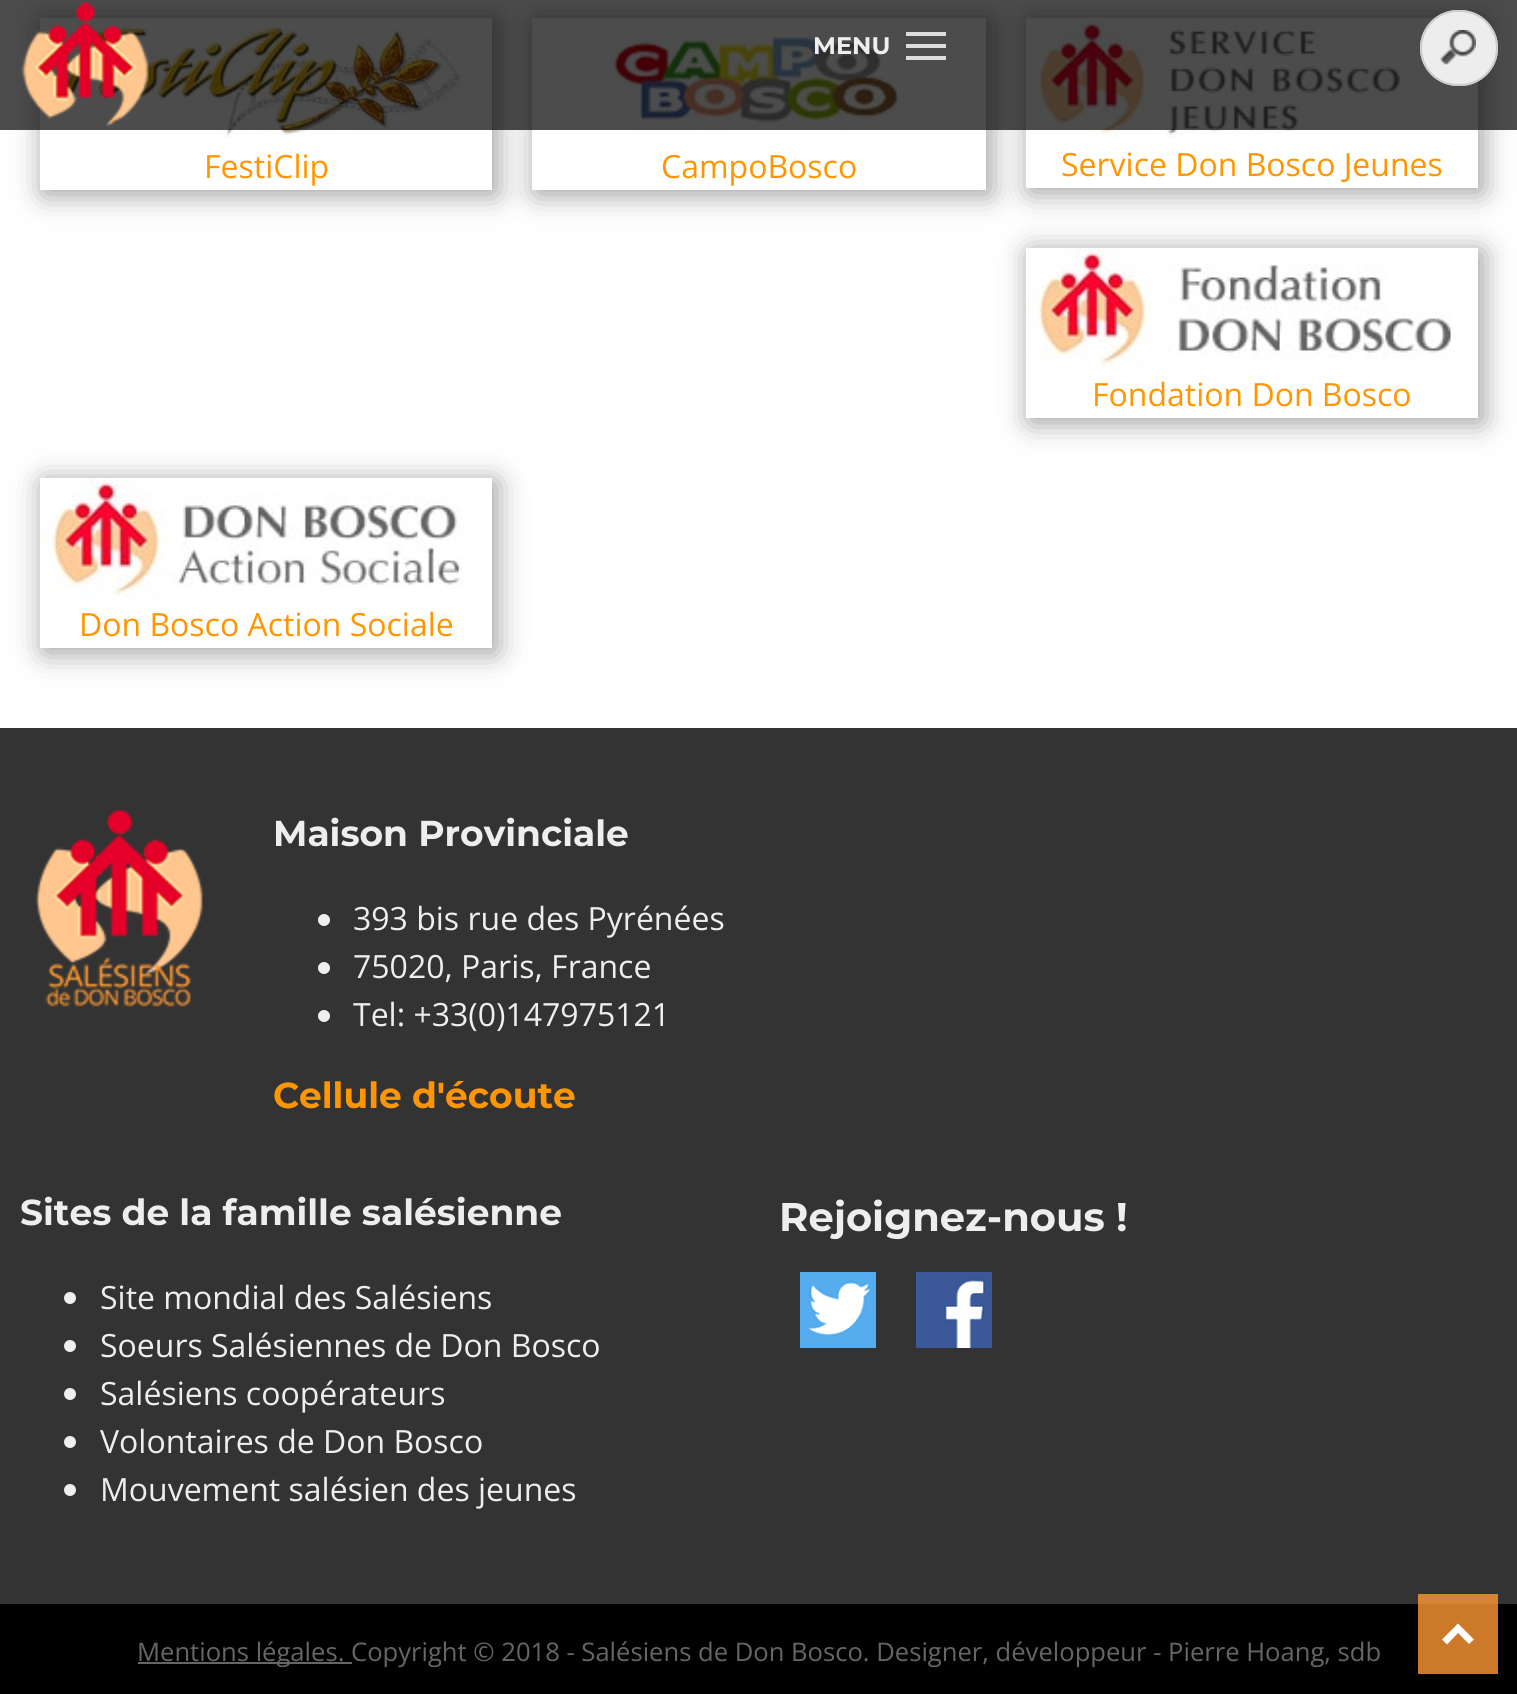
import math
import cairo

surface = cairo.ImageSurface(cairo.FORMAT_RGB24, 1517, 1694)
ctx = cairo.Context(surface)
options = cairo.FontOptions()
options.set_hint_metrics(cairo.HINT_METRICS_OFF)
options.set_hint_style(cairo.HINT_STYLE_NONE)
ctx.set_font_options(options)
ctx.set_miter_limit(4)


def set_color(code):
    ctx.set_source_rgb(*(v / 255 for v in bytes.fromhex(code[-6:])))


def draw_text(x, y, s, family, size, color, bold=False, italic=False):
    ctx.select_font_face(family, cairo.FONT_SLANT_ITALIC if italic else cairo.FONT_SLANT_NORMAL, cairo.FONT_WEIGHT_BOLD if bold else cairo.FONT_WEIGHT_NORMAL)
    ctx.set_font_size(size)
    set_color(color)
    ctx.move_to(x, y)
    ctx.show_text(s)


def fill_rect(x, y, w, h, color):
    set_color(color)
    ctx.rectangle(x, y, w, h)
    ctx.fill()


def rounded_rect(x, y, w, h, r):
    ctx.new_sub_path()
    for i, (u, v) in enumerate([(x + w - r, y + h - r), (x + r, y + h - r), (x + r, y + r), (x + w - r, y + r)]):
        ctx.arc(u, v, r, i * math.pi / 2, (i + 1) * math.pi / 2)
    ctx.close_path()


def draw_shadow(x, y, w, h, r, blur, alpha):
    ctx.push_group_with_content(cairo.CONTENT_ALPHA)
    ctx.set_operator(cairo.OPERATOR_SOURCE)
    for i in range(15, -16, -2):
        e = blur * i / 6
        if min(w, h) + 2 * e > 0:
            ctx.set_source_rgba(0, 0, 0, alpha * math.erfc((i - 1) / 8.5) / 2)
            rounded_rect(x - e, y - e, w + 2 * e, h + 2 * e, max(0, min(r + e + blur * .6, min(w, h) / 2 + e)))
            ctx.fill()
    ctx.mask(ctx.pop_group())


def draw_image(path, x, y, w, h):
    ctx.save()
    ctx.set_source_surface(cairo.ImageSurface.create_from_png(path), x, y)
    ctx.rectangle(x, y, w, h)
    ctx.fill()
    ctx.restore()


set_color("#ffffff")
ctx.paint()
ctx.save()
ctx.set_fill_rule(cairo.FILL_RULE_EVEN_ODD)
ctx.new_path()
ctx.move_to(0, 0)
ctx.line_to(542, 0)
ctx.line_to(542, 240)
ctx.line_to(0, 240)
ctx.close_path()
ctx.move_to(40, 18)
ctx.line_to(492, 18)
ctx.line_to(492, 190)
ctx.line_to(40, 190)
ctx.close_path()
ctx.clip()
set_color("#999999")
draw_shadow(44, 22, 452, 172, 0, 15, 1)
ctx.restore()
draw_image("assets/img3.png", 40, 18, 422, 121)
ctx.save()
ctx.set_fill_rule(cairo.FILL_RULE_EVEN_ODD)
ctx.new_path()
ctx.move_to(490, 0)
ctx.line_to(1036, 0)
ctx.line_to(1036, 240)
ctx.line_to(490, 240)
ctx.close_path()
ctx.move_to(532, 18)
ctx.line_to(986, 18)
ctx.line_to(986, 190)
ctx.line_to(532, 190)
ctx.close_path()
ctx.clip()
set_color("#999999")
draw_shadow(536, 22, 454, 172, 0, 15, 1)
ctx.restore()
draw_image("assets/img4.png", 605, 36, 295, 99)
ctx.save()
ctx.set_fill_rule(cairo.FILL_RULE_EVEN_ODD)
ctx.new_path()
ctx.move_to(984, 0)
ctx.line_to(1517, 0)
ctx.line_to(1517, 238)
ctx.line_to(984, 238)
ctx.close_path()
ctx.move_to(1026, 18)
ctx.line_to(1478, 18)
ctx.line_to(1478, 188)
ctx.line_to(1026, 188)
ctx.close_path()
ctx.clip()
set_color("#999999")
draw_shadow(1030, 22, 452, 170, 0, 15, 1)
ctx.restore()
draw_image("assets/img5.png", 1026, 18, 377, 122)
ctx.set_source_rgba(0, 0, 0, 0.7)
ctx.rectangle(0, 0, 1517, 130)
ctx.fill()
draw_image("assets/img1.png", 21, 1, 128, 126)
fill_rect(906, 32, 40, 4, "#dddddd")
draw_text(813, 54, "MENU", "Montserrat", 24, "#eeeeee", bold=True)
fill_rect(906, 44, 40, 4, "#dddddd")
fill_rect(906, 56, 40, 4, "#dddddd")
set_color("#ededed")
rounded_rect(1420, 10, 78, 76, 38)
ctx.fill()
draw_image("assets/img2.png", 1440, 30, 36, 36)
rounded_rect(1421, 11, 76, 74, 37)
set_color("#cccccc")
ctx.stroke()
draw_text(204, 178, "FestiClip", "Open Sans", 32, "#ff9601")
draw_text(661, 178, "CampoBosco", "Open Sans", 32, "#ff9601")
draw_text(1061, 176, "Service Don Bosco Jeunes", "Open Sans", 32, "#ff9601")
ctx.save()
ctx.set_fill_rule(cairo.FILL_RULE_EVEN_ODD)
ctx.new_path()
ctx.move_to(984, 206)
ctx.line_to(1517, 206)
ctx.line_to(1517, 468)
ctx.line_to(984, 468)
ctx.close_path()
ctx.move_to(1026, 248)
ctx.line_to(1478, 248)
ctx.line_to(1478, 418)
ctx.line_to(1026, 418)
ctx.close_path()
ctx.clip()
set_color("#999999")
draw_shadow(1030, 252, 452, 170, 0, 15, 1)
ctx.restore()
draw_image("assets/img6.png", 1026, 248, 425, 122)
draw_text(1092, 406, "Fondation Don Bosco", "Open Sans", 32, "#ff9601")
ctx.save()
ctx.set_fill_rule(cairo.FILL_RULE_EVEN_ODD)
ctx.new_path()
ctx.move_to(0, 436)
ctx.line_to(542, 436)
ctx.line_to(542, 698)
ctx.line_to(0, 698)
ctx.close_path()
ctx.move_to(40, 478)
ctx.line_to(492, 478)
ctx.line_to(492, 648)
ctx.line_to(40, 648)
ctx.close_path()
ctx.clip()
set_color("#999999")
draw_shadow(44, 482, 452, 170, 0, 15, 1)
ctx.restore()
draw_image("assets/img7.png", 40, 478, 424, 122)
draw_text(79, 636, "Don Bosco Action Sociale", "Open Sans", 32, "#ff9601")
fill_rect(0, 728, 1517, 876, "#333333")
fill_rect(1418, 1594, 80, 10, "#d68533")
draw_image("assets/img8.png", 35, 809, 168, 198)
draw_text(273, 846, "Maison Provinciale", "Montserrat", 36, "#eeeeee", bold=True)
ctx.new_path()
ctx.arc(324, 920, 6, 0, 2 * math.pi)
ctx.fill()
draw_text(353, 930, "393 bis rue des Pyrénées", "Open Sans", 32, "#eeeeee")
ctx.new_path()
ctx.arc(324, 968, 6, 0, 2 * math.pi)
ctx.fill()
draw_text(353, 978, "75020, Paris, France", "Open Sans", 32, "#eeeeee")
ctx.new_path()
ctx.arc(324, 1016, 6, 0, 2 * math.pi)
ctx.fill()
draw_text(353, 1026, "Tel: +33(0)147975121", "Open Sans", 32, "#eeeeee")
draw_text(273, 1108, "Cellule d'écoute", "Montserrat", 36, "#ff9601", bold=True)
draw_text(20, 1225, "Sites de la famille salésienne", "Montserrat", 36, "#eeeeee", bold=True)
ctx.new_path()
ctx.arc(70, 1298, 6, 0, 2 * math.pi)
ctx.fill()
draw_text(100, 1309, "Site mondial des Salésiens", "Open Sans", 32, "#eeeeee")
ctx.new_path()
ctx.arc(70, 1346, 6, 0, 2 * math.pi)
ctx.fill()
draw_text(100, 1357, "Soeurs Salésiennes de Don Bosco", "Open Sans", 32, "#eeeeee")
ctx.new_path()
ctx.arc(70, 1394, 6, 0, 2 * math.pi)
ctx.fill()
draw_text(100, 1405, "Salésiens coopérateurs", "Open Sans", 32, "#eeeeee")
ctx.new_path()
ctx.arc(70, 1442, 6, 0, 2 * math.pi)
ctx.fill()
draw_text(100, 1453, "Volontaires de Don Bosco", "Open Sans", 32, "#eeeeee")
ctx.new_path()
ctx.arc(70, 1490, 6, 0, 2 * math.pi)
ctx.fill()
draw_text(100, 1501, "Mouvement salésien des jeunes", "Open Sans", 32, "#eeeeee")
draw_text(779, 1231, "Rejoignez-nous !", "Montserrat", 40, "#eeeeee", bold=True)
fill_rect(810, 1284, 59, 51, "#ffffff")
draw_image("assets/img9.png", 800, 1272, 76, 76)
fill_rect(946, 1281, 37, 67, "#ffffff")
draw_image("assets/img10.png", 916, 1272, 76, 76)
fill_rect(0, 1604, 1517, 90, "#000000")
fill_rect(1418, 1604, 80, 70, "#cc7a29")
set_color("#ffffff")
ctx.new_path()
ctx.move_to(1458, 1623.5)
ctx.line_to(1474, 1639.5)
ctx.line_to(1469, 1644)
ctx.line_to(1458, 1633)
ctx.line_to(1447, 1644.5)
ctx.line_to(1442, 1639.5)
ctx.close_path()
ctx.fill()
fill_rect(138, 1662, 214, 2, "#666666")
draw_text(137, 1661, "Mentions légales. Copyright © 2018 - Salésiens de Don Bosco. Designer, développeur - Pierre Hoang, sdb", "Open Sans", 25.6, "#666666")
surface.write_to_png("output.png")
